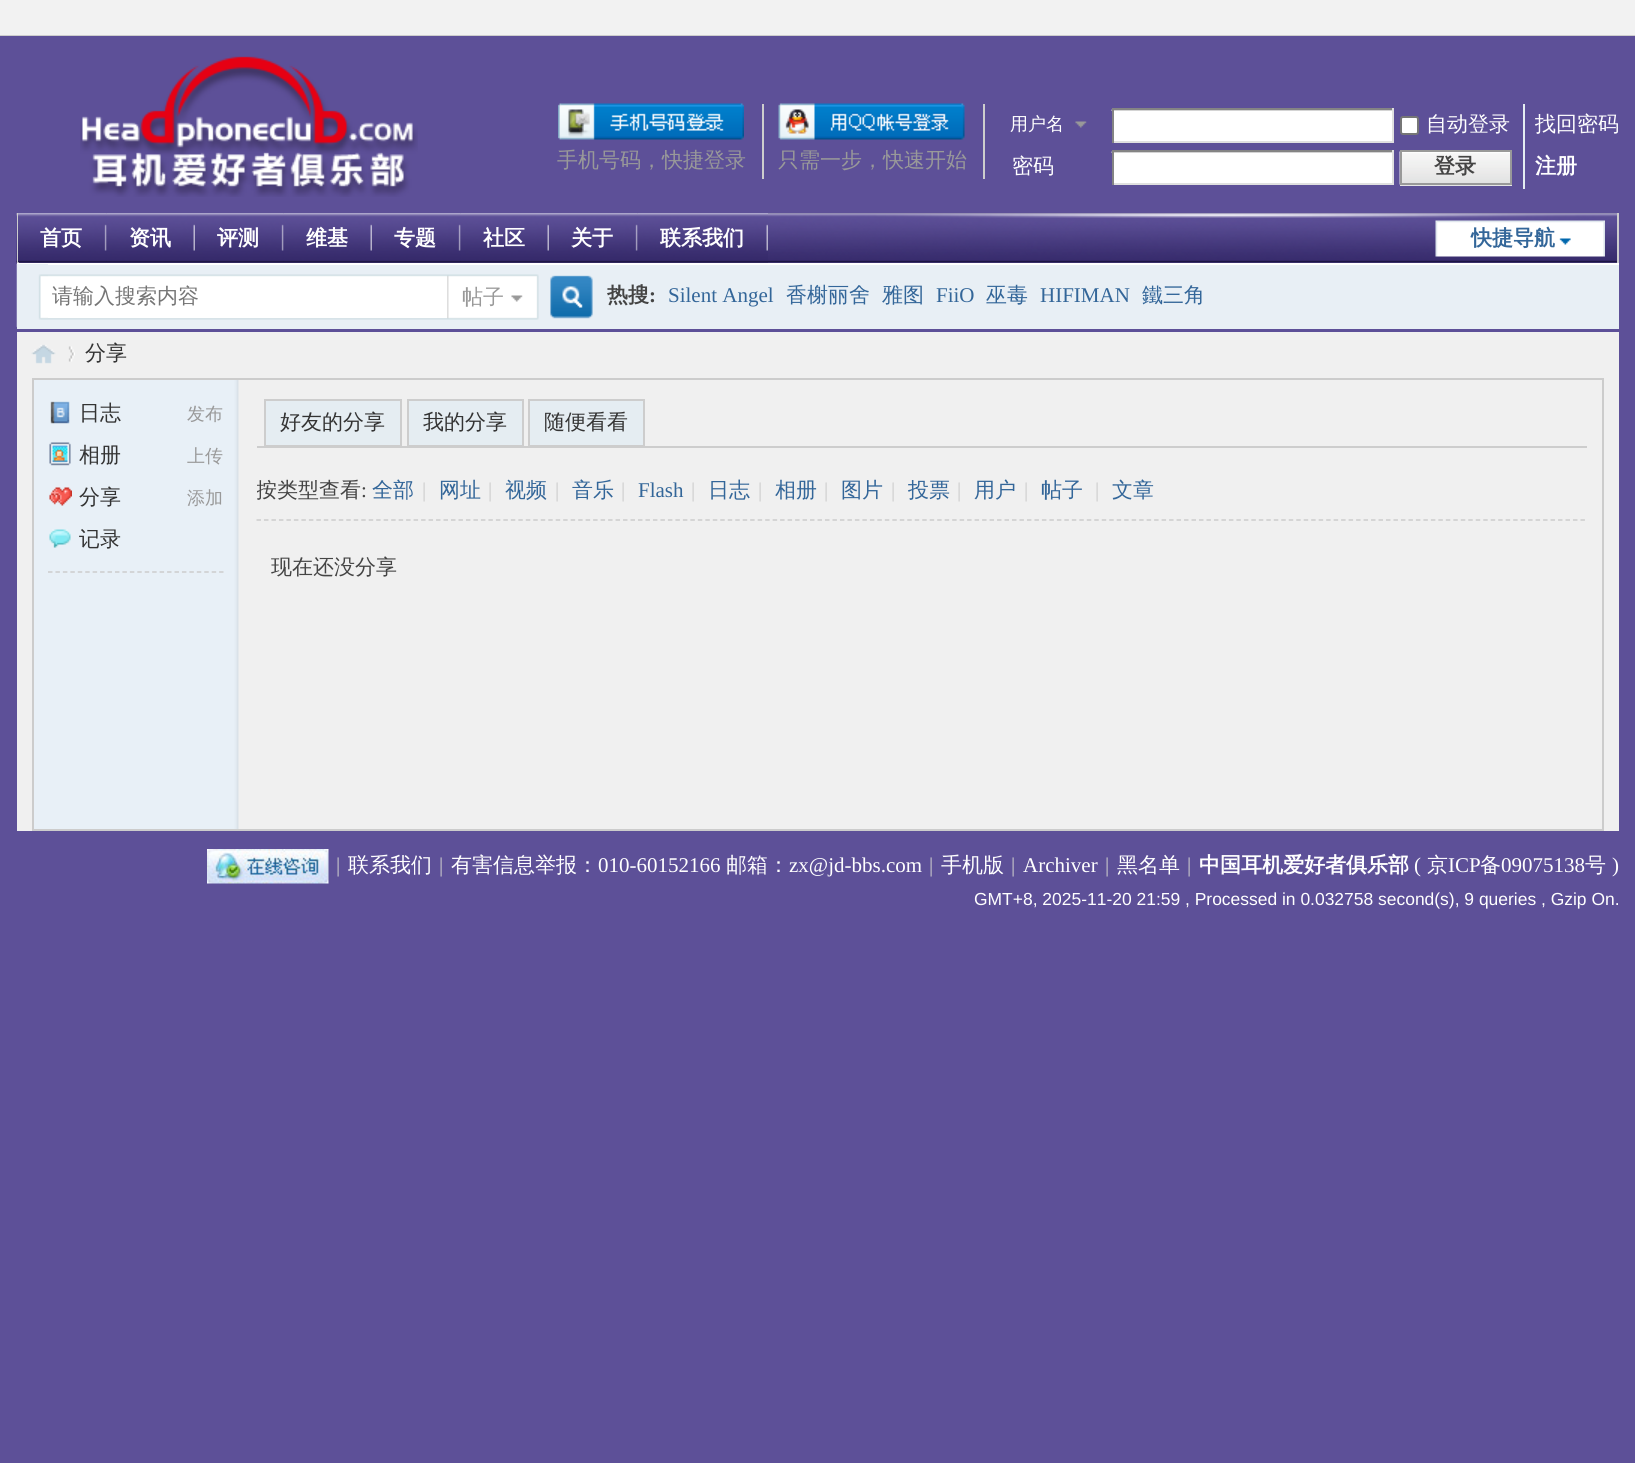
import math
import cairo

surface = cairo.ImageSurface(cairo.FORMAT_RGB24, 1635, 1463)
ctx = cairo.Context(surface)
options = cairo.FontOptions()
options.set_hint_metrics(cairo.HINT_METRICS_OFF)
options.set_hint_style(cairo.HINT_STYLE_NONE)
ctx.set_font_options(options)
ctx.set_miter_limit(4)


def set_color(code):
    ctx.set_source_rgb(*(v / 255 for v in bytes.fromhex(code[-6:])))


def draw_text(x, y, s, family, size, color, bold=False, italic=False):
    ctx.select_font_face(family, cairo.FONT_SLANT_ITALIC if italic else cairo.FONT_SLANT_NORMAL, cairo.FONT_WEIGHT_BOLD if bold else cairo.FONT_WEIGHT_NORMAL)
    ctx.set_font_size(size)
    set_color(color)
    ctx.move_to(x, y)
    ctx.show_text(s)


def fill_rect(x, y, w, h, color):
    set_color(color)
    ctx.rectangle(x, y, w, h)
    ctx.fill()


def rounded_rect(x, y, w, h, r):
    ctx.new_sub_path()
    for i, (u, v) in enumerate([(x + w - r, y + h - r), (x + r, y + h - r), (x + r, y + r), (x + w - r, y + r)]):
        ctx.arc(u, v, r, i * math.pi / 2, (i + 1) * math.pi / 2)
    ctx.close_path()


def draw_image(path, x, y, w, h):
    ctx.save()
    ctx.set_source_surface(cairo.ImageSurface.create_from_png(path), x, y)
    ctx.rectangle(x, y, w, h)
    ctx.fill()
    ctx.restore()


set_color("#5d5098")
ctx.paint()
fill_rect(0, 0, 1635, 35, "#f2f2f2")
fill_rect(0, 35, 1635, 1, "#cdcdcd")
draw_image("assets/img1.png", 80, 56, 338, 141)
fill_rect(762, 104, 2, 75, "#cdcdcd")
draw_image("assets/img2.png", 558, 103, 186, 37)
draw_text(557, 167, "手机号码，快捷登录", "WenQuanYi Zen Hei Medium", 21, "#999999")
fill_rect(983, 104, 2, 75, "#cdcdcd")
draw_image("assets/img3.png", 778, 103, 187, 37)
draw_text(778, 167, "只需一步，快速开始", "WenQuanYi Zen Hei Medium", 21, "#999999")
draw_image("assets/img4.png", 1075, 121, 12, 7)
draw_text(1010, 130, "用户名", "WenQuanYi Zen Hei Medium", 18, "#ffffff")
fill_rect(1114, 111, 278, 30, "#ffffff")
draw_image("assets/img5.png", 1111, 109, 281, 2)
fill_rect(1112, 108, 282, 2, "#848484")
fill_rect(1392, 108, 2, 35, "#e0e0e0")
fill_rect(1112, 141, 282, 2, "#e0e0e0")
fill_rect(1112, 108, 2, 35, "#848484")
set_color("#ffffff")
rounded_rect(1401, 117, 17, 17, 2)
ctx.fill_preserve()
set_color("#767676")
ctx.stroke()
draw_text(1426, 131, "自动登录", "WenQuanYi Zen Hei Medium", 21, "#ffffff")
draw_text(1535, 131, "找回密码", "WenQuanYi Zen Hei Medium", 21, "#ffffff")
draw_text(1012, 173, "密码", "WenQuanYi Zen Hei Medium", 21, "#ffffff")
fill_rect(1114, 153, 278, 30, "#ffffff")
draw_image("assets/img5.png", 1111, 151, 281, 2)
fill_rect(1112, 150, 282, 2, "#848484")
fill_rect(1392, 150, 2, 35, "#e0e0e0")
fill_rect(1112, 183, 282, 2, "#e0e0e0")
fill_rect(1112, 150, 2, 35, "#848484")
fill_rect(1523, 104, 2, 85, "#e5edf2")
fill_rect(1400, 185, 112, 1, "#e5e5e5")
draw_image("assets/img6.png", 1399, 151, 111, 34)
ctx.rectangle(1401, 151, 110, 33)
set_color("#999999")
ctx.stroke()
draw_text(1434, 173, "登录", "WenQuanYi Zen Hei", 21, "#444444", bold=True)
draw_text(1535, 173, "注册", "WenQuanYi Zen Hei", 21, "#ffffff", bold=True)
draw_image("assets/img7.png", 16, 213, 1601, 50)
fill_rect(1617, 213, 2, 50, "#cdcdcd")
fill_rect(17, 213, 2, 50, "#cdcdcd")
draw_image("assets/img8.png", 18, 213, 89, 50)
draw_text(40, 245, "首页", "WenQuanYi Zen Hei", 21, "#ffffff", bold=True)
draw_image("assets/img9.png", 106, 213, 89, 50)
draw_text(129, 245, "资讯", "WenQuanYi Zen Hei", 21, "#ffffff", bold=True)
draw_image("assets/img10.png", 195, 213, 89, 50)
draw_text(217, 245, "评测", "WenQuanYi Zen Hei", 21, "#ffffff", bold=True)
draw_image("assets/img11.png", 283, 213, 89, 50)
draw_text(306, 245, "维基", "WenQuanYi Zen Hei", 21, "#ffffff", bold=True)
draw_image("assets/img12.png", 372, 213, 89, 50)
draw_text(394, 245, "专题", "WenQuanYi Zen Hei", 21, "#ffffff", bold=True)
draw_image("assets/img13.png", 460, 213, 89, 50)
draw_text(483, 245, "社区", "WenQuanYi Zen Hei", 21, "#ffffff", bold=True)
draw_image("assets/img14.png", 549, 213, 89, 50)
draw_text(571, 245, "关于", "WenQuanYi Zen Hei", 21, "#ffffff", bold=True)
draw_image("assets/img15.png", 637, 213, 131, 50)
draw_text(660, 245, "联系我们", "WenQuanYi Zen Hei", 21, "#ffffff", bold=True)
draw_image("assets/img16.png", 1435, 220, 170, 37)
draw_text(1471, 245, "快捷导航", "WenQuanYi Zen Hei", 21, "#336699", bold=True)
fill_rect(17, 265, 1602, 64, "#e8eff5")
fill_rect(17, 263, 1602, 2, "#ffffff")
draw_image("assets/img17.png", 16, 264, 32, 63)
draw_image("assets/img18.png", 48, 274, 399, 46)
fill_rect(48, 317, 399, 1, "#ffffff")
draw_text(52, 303, "请输入搜索内容", "WenQuanYi Zen Hei Medium", 21, "#757575")
draw_image("assets/img19.png", 447, 274, 92, 46)
draw_text(462, 304, "帖子", "WenQuanYi Zen Hei Medium", 21, "#999999")
draw_image("assets/img20.png", 550, 275, 43, 44)
draw_text(607, 302, "热搜", "WenQuanYi Zen Hei", 21, "#444444", bold=True)
draw_text(649, 302, ":", "Liberation Serif", 21, "#444444", bold=True)
draw_text(668, 302, "Silent Angel", "Liberation Serif", 21, "#336699")
draw_text(786, 302, "香榭丽舍", "WenQuanYi Zen Hei Medium", 21, "#336699")
draw_text(882, 302, "雅图", "WenQuanYi Zen Hei Medium", 21, "#336699")
draw_text(936, 302, "FiiO", "Liberation Serif", 21, "#336699")
draw_text(986, 302, "巫毒", "WenQuanYi Zen Hei Medium", 21, "#336699")
draw_text(1040, 302, "HIFIMAN", "Liberation Serif", 21, "#336699")
draw_text(1142, 302, "鐵三角", "WenQuanYi Zen Hei Medium", 21, "#336699")
fill_rect(17, 332, 1602, 499, "#f0f0f0")
draw_image("assets/img21.png", 31, 344, 25, 20)
draw_image("assets/img22.png", 68, 346, 7, 16)
draw_text(85, 360, "分享", "WenQuanYi Zen Hei Medium", 21, "#333333")
draw_image("assets/img23.png", 34, 380, 205, 449)
ctx.rectangle(33, 379, 1570, 451)
set_color("#cccccc")
ctx.stroke()
draw_image("assets/img24.png", 50, 401, 20, 23)
draw_text(79, 420, "日志", "WenQuanYi Zen Hei Medium", 21, "#333333")
draw_text(187, 420, "发布", "WenQuanYi Zen Hei Medium", 18, "#999999")
draw_image("assets/img25.png", 49, 442, 22, 24)
draw_text(79, 462, "相册", "WenQuanYi Zen Hei Medium", 21, "#333333")
draw_text(187, 462, "上传", "WenQuanYi Zen Hei Medium", 18, "#999999")
draw_image("assets/img26.png", 49, 487, 23, 19)
draw_text(79, 504, "分享", "WenQuanYi Zen Hei Medium", 21, "#333333")
draw_text(187, 504, "添加", "WenQuanYi Zen Hei Medium", 18, "#999999")
draw_image("assets/img27.png", 49, 529, 22, 19)
draw_text(79, 546, "记录", "WenQuanYi Zen Hei Medium", 21, "#333333")
ctx.new_path()
ctx.move_to(48, 572)
ctx.line_to(223.5, 572)
set_color("#cdcdcd")
ctx.set_line_width(1.5)
ctx.set_dash([4.5, 2.94])
ctx.stroke()
fill_rect(257, 446, 1330, 2, "#cdcdcd")
set_color("#e5edf2")
ctx.rectangle(265, 400, 136, 46)
ctx.fill_preserve()
set_color("#cdcdcd")
ctx.set_line_width(2)
ctx.set_dash([])
ctx.stroke()
draw_text(280, 429, "好友的分享", "WenQuanYi Zen Hei Medium", 21, "#333333")
set_color("#e5edf2")
ctx.rectangle(408, 400, 115, 46)
ctx.fill_preserve()
set_color("#cdcdcd")
ctx.stroke()
draw_text(423, 429, "我的分享", "WenQuanYi Zen Hei Medium", 21, "#333333")
set_color("#e5edf2")
ctx.rectangle(529, 400, 115, 46)
ctx.fill_preserve()
set_color("#cdcdcd")
ctx.stroke()
draw_text(544, 429, "随便看看", "WenQuanYi Zen Hei Medium", 21, "#333333")
ctx.new_path()
ctx.move_to(256.5, 520)
ctx.line_to(1587, 520)
set_color("#cdcdcd")
ctx.set_line_width(1.5)
ctx.set_dash([4.5, 2.98])
ctx.stroke()
ctx.save()
ctx.rectangle(257, 380, 1330, 250)
ctx.clip()
draw_text(256, 497, "按类型查看", "WenQuanYi Zen Hei Medium", 21, "#444444")
ctx.restore()
draw_text(361, 497, ":", "Liberation Serif", 21, "#444444")
draw_text(372, 497, "全部", "WenQuanYi Zen Hei Medium", 21, "#336699")
draw_text(422, 497, "|", "Liberation Serif", 21, "#cccccc")
draw_text(439, 497, "网址", "WenQuanYi Zen Hei Medium", 21, "#336699")
draw_text(488, 497, "|", "Liberation Serif", 21, "#cccccc")
draw_text(505, 497, "视频", "WenQuanYi Zen Hei Medium", 21, "#336699")
draw_text(555, 497, "|", "Liberation Serif", 21, "#cccccc")
draw_text(572, 497, "音乐", "WenQuanYi Zen Hei Medium", 21, "#336699")
draw_text(621, 497, "|", "Liberation Serif", 21, "#cccccc")
draw_text(638, 497, "Flash", "Liberation Serif", 21, "#336699")
draw_text(691, 497, "|", "Liberation Serif", 21, "#cccccc")
draw_text(708, 497, "日志", "WenQuanYi Zen Hei Medium", 21, "#336699")
draw_text(758, 497, "|", "Liberation Serif", 21, "#cccccc")
draw_text(775, 497, "相册", "WenQuanYi Zen Hei Medium", 21, "#336699")
draw_text(824, 497, "|", "Liberation Serif", 21, "#cccccc")
draw_text(841, 497, "图片", "WenQuanYi Zen Hei Medium", 21, "#336699")
draw_text(891, 497, "|", "Liberation Serif", 21, "#cccccc")
draw_text(908, 497, "投票", "WenQuanYi Zen Hei Medium", 21, "#336699")
draw_text(957, 497, "|", "Liberation Serif", 21, "#cccccc")
draw_text(974, 497, "用户", "WenQuanYi Zen Hei Medium", 21, "#336699")
draw_text(1024, 497, "|", "Liberation Serif", 21, "#cccccc")
draw_text(1041, 497, "帖子", "WenQuanYi Zen Hei Medium", 21, "#336699")
draw_text(1095, 497, "|", "Liberation Serif", 21, "#cccccc")
draw_text(1112, 497, "文章", "WenQuanYi Zen Hei Medium", 21, "#336699")
draw_text(271, 574, "现在还没分享", "WenQuanYi Zen Hei Medium", 21, "#444444")
draw_image("assets/img28.png", 207, 849, 122, 35)
draw_text(336, 872, "|", "Liberation Serif", 21, "#cccccc")
draw_text(348, 872, "联系我们", "WenQuanYi Zen Hei Medium", 21, "#ffffff")
draw_text(439, 872, "|", "Liberation Serif", 21, "#cccccc")
draw_text(451, 872, "有害信息举报：", "WenQuanYi Zen Hei Medium", 21, "#ffffff")
draw_text(598, 872, "010-60152166", "Liberation Serif", 21, "#ffffff")
draw_text(726, 872, "邮箱：", "WenQuanYi Zen Hei Medium", 21, "#ffffff")
draw_text(789, 872, "zx@jd-bbs.com", "Liberation Serif", 21, "#ffffff")
draw_text(929, 872, "|", "Liberation Serif", 21, "#cccccc")
draw_text(941, 872, "手机版", "WenQuanYi Zen Hei Medium", 21, "#ffffff")
draw_text(1011, 872, "|", "Liberation Serif", 21, "#cccccc")
draw_text(1023, 872, "Archiver", "Liberation Serif", 21, "#ffffff")
draw_text(1105, 872, "|", "Liberation Serif", 21, "#cccccc")
draw_text(1117, 872, "黑名单", "WenQuanYi Zen Hei Medium", 21, "#ffffff")
draw_text(1187, 872, "|", "Liberation Serif", 21, "#cccccc")
draw_text(1199, 872, "中国耳机爱好者俱乐部", "WenQuanYi Zen Hei", 21, "#ffffff", bold=True)
draw_text(1414, 872, "(", "Liberation Serif", 21, "#ffffff")
draw_text(1427, 872, "京", "WenQuanYi Zen Hei Medium", 21, "#ffffff")
draw_text(1448, 872, "ICP", "Liberation Serif", 21, "#ffffff")
draw_text(1480, 872, "备", "WenQuanYi Zen Hei Medium", 21, "#ffffff")
draw_text(1501, 872, "09075138", "Liberation Serif", 21, "#ffffff")
draw_text(1585, 872, "号", "WenQuanYi Zen Hei Medium", 21, "#ffffff")
draw_text(1612, 872, ")", "Liberation Serif", 21, "#ffffff")
draw_text(974, 905, "GMT+8, 2025-11-20 21:59 , Processed in 0.032758 second(s), 9 queries , Gzip On.", "Liberation Sans", 17.45, "#ffffff")
surface.write_to_png("output.png")
